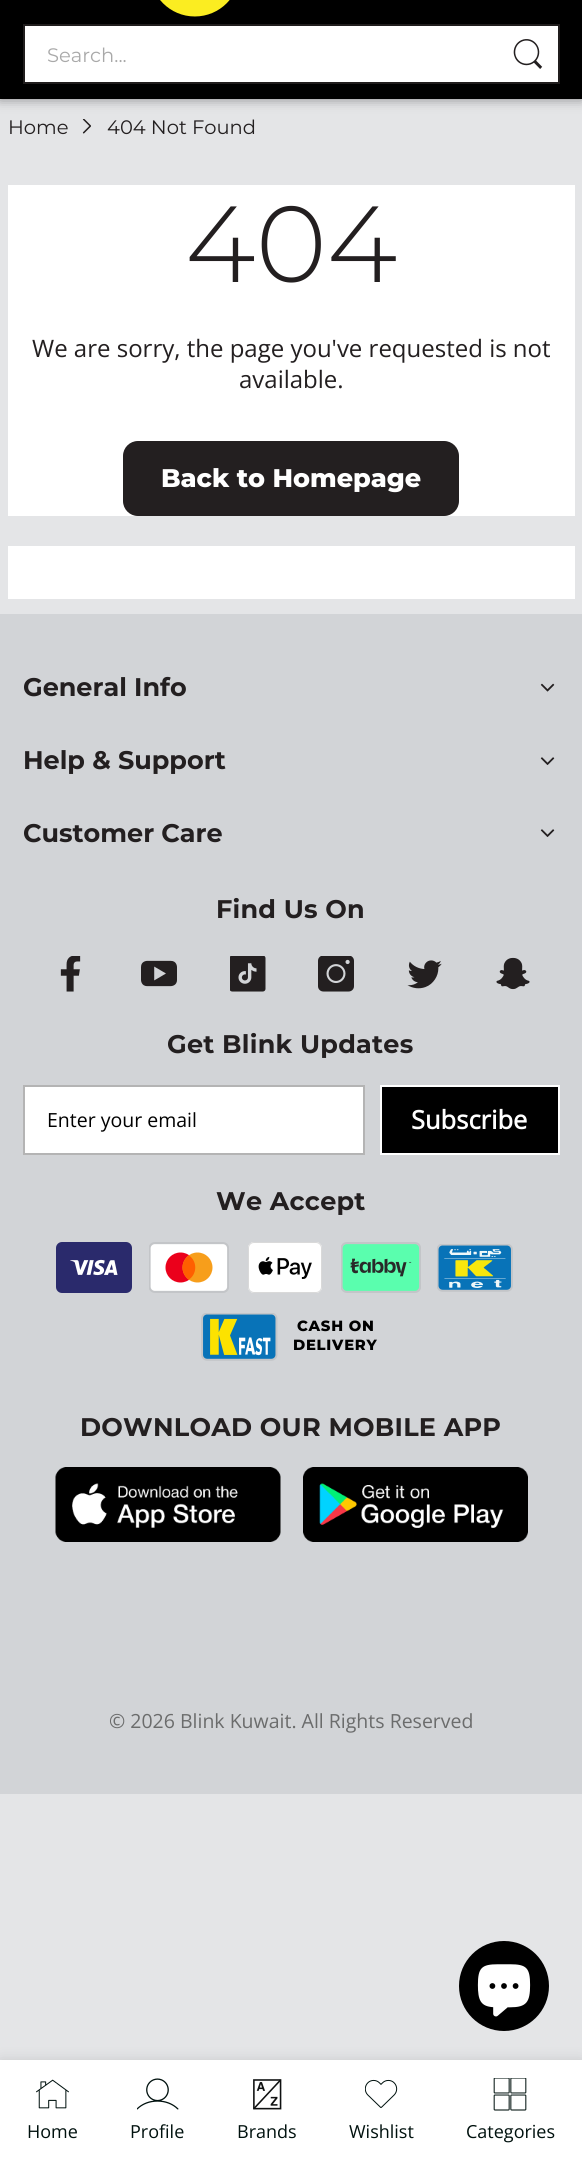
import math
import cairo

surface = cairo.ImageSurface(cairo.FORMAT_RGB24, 582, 2158)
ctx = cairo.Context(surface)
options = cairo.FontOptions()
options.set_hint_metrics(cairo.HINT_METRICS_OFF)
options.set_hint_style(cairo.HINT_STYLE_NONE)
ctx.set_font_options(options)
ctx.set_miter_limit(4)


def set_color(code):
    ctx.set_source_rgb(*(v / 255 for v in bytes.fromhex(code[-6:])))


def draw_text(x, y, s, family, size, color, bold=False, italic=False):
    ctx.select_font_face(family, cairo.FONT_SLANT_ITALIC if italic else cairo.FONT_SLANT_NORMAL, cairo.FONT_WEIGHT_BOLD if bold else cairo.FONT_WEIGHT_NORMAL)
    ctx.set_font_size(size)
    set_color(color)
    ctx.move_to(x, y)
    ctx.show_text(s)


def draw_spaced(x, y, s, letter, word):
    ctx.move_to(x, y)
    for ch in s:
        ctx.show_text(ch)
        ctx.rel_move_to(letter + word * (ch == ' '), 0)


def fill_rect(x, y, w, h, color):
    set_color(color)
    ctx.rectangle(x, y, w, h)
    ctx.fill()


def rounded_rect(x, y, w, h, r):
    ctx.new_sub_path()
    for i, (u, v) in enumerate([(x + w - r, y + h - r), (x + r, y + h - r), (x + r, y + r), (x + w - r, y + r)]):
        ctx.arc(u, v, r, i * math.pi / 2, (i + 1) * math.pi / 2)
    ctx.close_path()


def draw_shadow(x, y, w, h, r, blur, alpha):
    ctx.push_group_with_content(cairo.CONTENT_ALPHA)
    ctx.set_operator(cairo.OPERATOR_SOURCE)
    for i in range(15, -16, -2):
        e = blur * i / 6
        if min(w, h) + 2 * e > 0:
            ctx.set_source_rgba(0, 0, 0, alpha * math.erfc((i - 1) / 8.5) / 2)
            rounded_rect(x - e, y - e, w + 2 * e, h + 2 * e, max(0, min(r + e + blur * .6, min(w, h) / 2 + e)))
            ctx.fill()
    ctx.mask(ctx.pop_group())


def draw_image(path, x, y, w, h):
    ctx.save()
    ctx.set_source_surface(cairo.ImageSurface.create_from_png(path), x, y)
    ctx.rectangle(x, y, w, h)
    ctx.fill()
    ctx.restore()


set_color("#e4e5e7")
ctx.paint()
set_color("#000000")
draw_shadow(0, -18, 582, 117, 0, 6, 0.42)
fill_rect(0, 0, 582, 99, "#000000")
draw_image("assets/img1.png", 160, 0, 70, 17)
set_color("#ffffff")
ctx.rectangle(24, 25, 535, 58)
ctx.fill_preserve()
set_color("#201d1d")
ctx.stroke()
draw_text(47, 62, "Search...", "Montserrat", 19.5, "#a9a9a9")
draw_image("assets/img2.png", 513, 39, 30, 30)
draw_text(8, 134, "Home", "Montserrat", 19.5, "#231f20")
draw_image("assets/img3.png", 82, 119, 9, 15)
draw_text(107, 134, "404 Not Found", "Montserrat", 19.5, "#231f20")
fill_rect(8, 185, 567, 331, "#ffffff")
draw_text(185, 282, "404", "Montserrat Light", 108, "#231f20")
draw_text(32, 357, "We are sorry, the page you've requested is not", "Open Sans", 24, "#231f20")
draw_text(239, 388, "available.", "Open Sans", 24, "#231f20")
rounded_rect(123, 441, 336, 75, 15)
ctx.fill()
draw_text(161, 487, "Back to Homepage", "Montserrat ExtraBold", 25.5, "#ffffff")
fill_rect(8, 546, 567, 53, "#ffffff")
fill_rect(0, 614, 582, 1180, "#d2d4d7")
draw_text(23, 696, "General Info", "Montserrat", 25.5, "#231f20", bold=True)
draw_image("assets/img4.png", 540, 683, 15, 9)
draw_text(23, 769, "Help & Support", "Montserrat", 25.5, "#231f20", bold=True)
draw_image("assets/img5.png", 540, 757, 15, 8)
draw_text(23, 842, "Customer Care", "Montserrat", 25.5, "#231f20", bold=True)
draw_image("assets/img5.png", 540, 829, 15, 8)
draw_spaced(216, 918, "Find Us On", 0.25, 0)
draw_image("assets/img6.png", 60, 956, 21, 36)
draw_image("assets/img7.png", 141, 960, 36, 27)
draw_image("assets/img8.png", 230, 956, 36, 36)
draw_image("assets/img9.png", 318, 956, 36, 36)
draw_image("assets/img10.png", 407, 960, 35, 29)
draw_image("assets/img11.png", 496, 957, 34, 33)
draw_spaced(167, 1053, "Get Blink Updates", 0.25, 0)
set_color("#ffffff")
ctx.rectangle(24, 1086, 340, 68)
ctx.fill_preserve()
set_color("#b4b4b4")
ctx.stroke()
draw_text(47, 1127, "Enter your email", "Open Sans", 19.5, "#000000")
ctx.rectangle(381, 1086, 178, 68)
ctx.fill_preserve()
set_color("#ffffff")
ctx.stroke()
draw_text(411, 1129, "Subscribe", "Open Sans", 25.5, "#ffffff", bold=True)
ctx.select_font_face("Montserrat", cairo.FONT_SLANT_NORMAL, cairo.FONT_WEIGHT_BOLD)
set_color("#231f20")
draw_spaced(216, 1210, "We Accept", 0.25, 0)
draw_image("assets/img12.png", 56, 1242, 76, 51)
draw_image("assets/img13.png", 149, 1242, 80, 51)
draw_image("assets/img14.png", 248, 1242, 74, 51)
draw_image("assets/img15.png", 341, 1242, 80, 51)
draw_image("assets/img16.png", 437, 1244, 76, 48)
draw_image("assets/img17.png", 201, 1313, 77, 48)
ctx.select_font_face("Montserrat ExtraBold")
ctx.set_font_size(14.75)
set_color("#000000")
draw_spaced(297, 1331, "CASH ON", 0.75, 0)
draw_spaced(293, 1350, "DELIVERY", 0.75, 0)
ctx.select_font_face("Montserrat", cairo.FONT_SLANT_NORMAL, cairo.FONT_WEIGHT_BOLD)
ctx.set_font_size(25.5)
set_color("#231f20")
draw_spaced(80, 1436, "DOWNLOAD OUR MOBILE APP", 0.25, 0)
draw_image("assets/img18.png", 55, 1467, 226, 75)
draw_image("assets/img19.png", 303, 1467, 225, 75)
draw_text(109, 1728, "© 2026 Blink Kuwait. All Rights Reserved", "Open Sans", 19.5, "#6b6c6c")
set_color("#000000")
draw_shadow(0, 2060, 582, 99, 0, 7, 0.12)
fill_rect(0, 2060, 582, 98, "#ffffff")
draw_image("assets/img20.png", 36, 2079, 33, 30)
draw_text(27, 2138, "Home", "Open Sans", 18, "#00110e")
draw_image("assets/img21.png", 137, 2078, 42, 32)
draw_text(130, 2138, "Profile", "Open Sans", 18, "#00110e")
draw_image("assets/img22.png", 253, 2079, 29, 31)
draw_text(237, 2138, "Brands", "Open Sans", 18, "#00110e")
draw_image("assets/img23.png", 365, 2079, 33, 29)
draw_text(349, 2138, "Wishlist", "Open Sans", 18, "#00110e")
draw_image("assets/img24.png", 493, 2078, 34, 33)
draw_text(466, 2138, "Categories", "Open Sans", 18, "#00110e")
set_color("#000000")
ctx.new_path()
ctx.arc(504, 1986, 45, 0, 2 * math.pi)
ctx.fill()
draw_image("assets/img25.png", 477, 1964, 54, 53)
surface.write_to_png("output.png")
